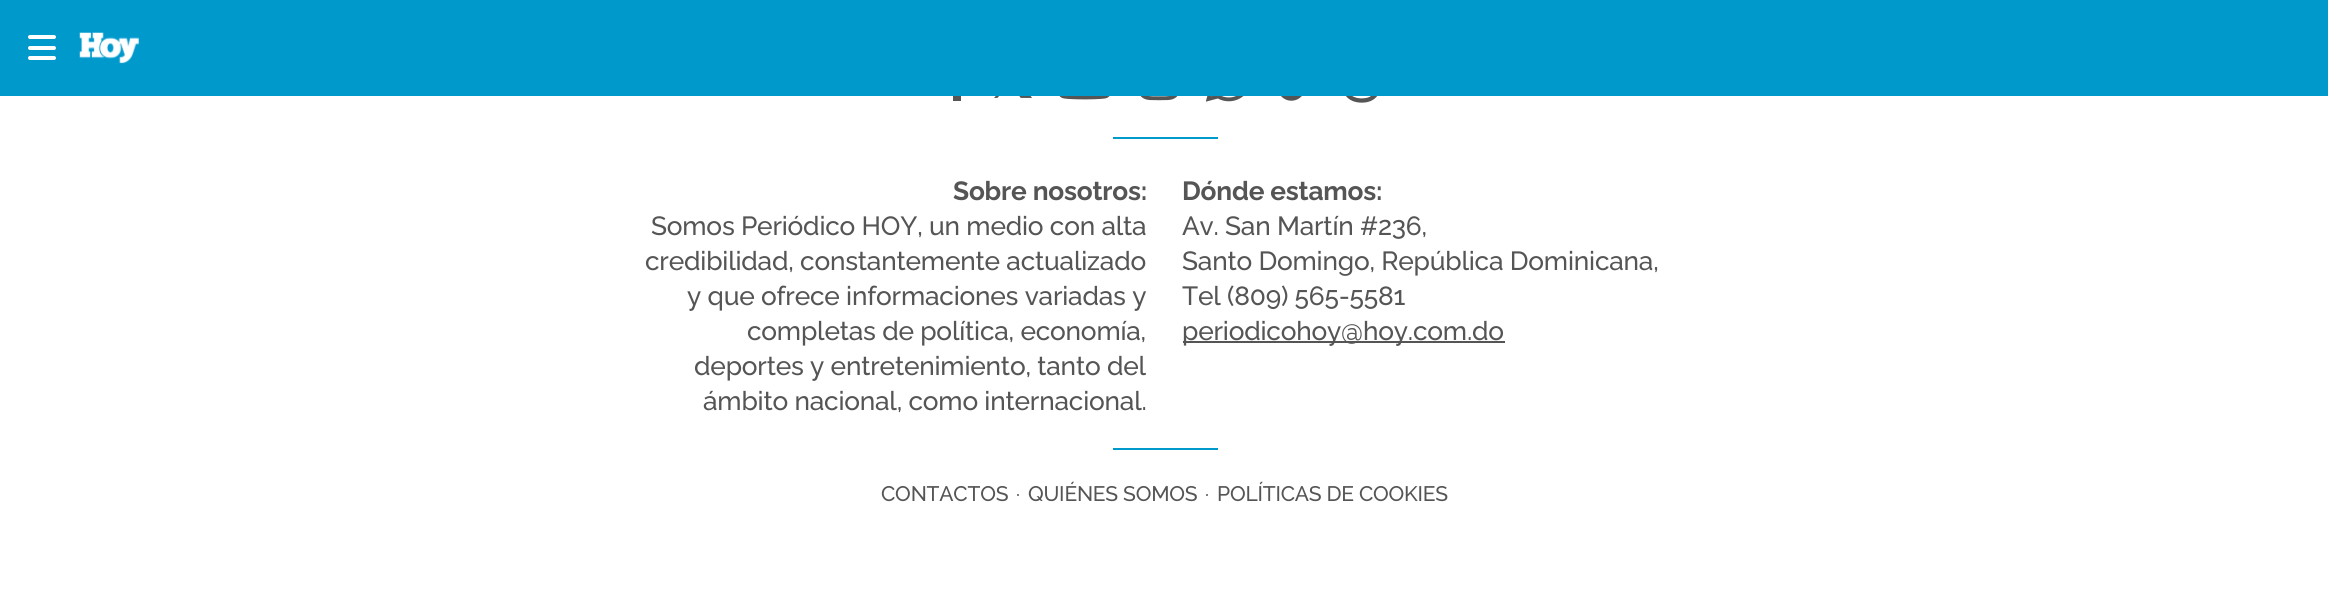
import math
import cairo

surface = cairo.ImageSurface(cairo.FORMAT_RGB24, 2328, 598)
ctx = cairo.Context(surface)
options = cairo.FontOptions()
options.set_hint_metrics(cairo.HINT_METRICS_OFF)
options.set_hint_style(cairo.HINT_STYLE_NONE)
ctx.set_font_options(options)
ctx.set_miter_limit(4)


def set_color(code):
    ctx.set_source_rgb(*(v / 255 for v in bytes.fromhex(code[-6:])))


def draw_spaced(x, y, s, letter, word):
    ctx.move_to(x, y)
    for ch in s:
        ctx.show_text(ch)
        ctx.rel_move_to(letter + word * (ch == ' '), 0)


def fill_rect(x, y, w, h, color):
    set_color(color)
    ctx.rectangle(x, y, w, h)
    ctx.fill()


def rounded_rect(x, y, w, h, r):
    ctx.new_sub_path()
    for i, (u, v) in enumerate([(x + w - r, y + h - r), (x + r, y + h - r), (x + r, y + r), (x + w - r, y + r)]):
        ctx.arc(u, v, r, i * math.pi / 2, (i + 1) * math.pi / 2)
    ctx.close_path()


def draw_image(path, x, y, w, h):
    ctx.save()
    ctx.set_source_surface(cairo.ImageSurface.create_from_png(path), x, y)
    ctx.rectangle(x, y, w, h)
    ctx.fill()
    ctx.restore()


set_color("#ffffff")
ctx.paint()
set_color("#555555")
ctx.new_path()
ctx.move_to(968, 83)
ctx.line_to(969, 75)
ctx.line_to(961, 75)
ctx.curve_to(961, 68, 961, 66, 969, 66)
ctx.line_to(969, 60)
ctx.curve_to(955, 57, 953, 63, 953, 75)
ctx.line_to(947, 75)
ctx.line_to(947, 83)
ctx.line_to(953, 83)
ctx.line_to(953, 101)
ctx.line_to(961, 101)
ctx.line_to(961, 83)
ctx.close_path()
ctx.fill()
fill_rect(0, 0, 2328, 96, "#0099cc")
set_color("#ffffff")
rounded_rect(28, 46, 28, 4, 2)
ctx.fill()
rounded_rect(28, 35, 28, 4, 2)
ctx.fill()
rounded_rect(28, 56, 28, 4, 2)
ctx.fill()
draw_image("assets/img1.png", 79, 32, 61, 32)
draw_image("assets/img2.png", 994, 96, 38, 2)
draw_image("assets/img3.png", 1059, 96, 51, 4)
draw_image("assets/img4.png", 1140, 96, 38, 5)
draw_image("assets/img5.png", 1206, 96, 38, 6)
draw_image("assets/img6.png", 1281, 96, 21, 5)
draw_image("assets/img7.png", 1346, 96, 32, 7)
fill_rect(1113, 137, 105, 2, "#0099cc")
ctx.select_font_face("Raleway", cairo.FONT_SLANT_NORMAL, cairo.FONT_WEIGHT_BOLD)
ctx.set_font_size(26.25)
set_color("#555555")
draw_spaced(953, 200, "Sobre nosotros:", -0.2, 0)
ctx.select_font_face("Raleway Medium")
draw_spaced(651, 235, "Somos Periódico HOY, un medio con alta", -0.2, 0)
draw_spaced(645, 270, "credibilidad, constantemente actualizado", -0.2, 0)
draw_spaced(687, 305, "y que ofrece informaciones variadas y", -0.2, 0)
draw_spaced(747, 340, "completas de política, economía,", -0.2, 0)
draw_spaced(694, 375, "deportes y entretenimiento, tanto del", -0.2, 0)
draw_spaced(703, 410, "ámbito nacional, como internacional.", -0.2, 0)
ctx.select_font_face("Raleway", cairo.FONT_SLANT_NORMAL, cairo.FONT_WEIGHT_BOLD)
draw_spaced(1182, 200, "Dónde estamos:", -0.2, 0)
ctx.select_font_face("Raleway Medium")
draw_spaced(1182, 235, "Av. San Martín #236,", -0.2, 0)
draw_spaced(1182, 270, "Santo Domingo, República Dominicana,", -0.2, 0)
draw_spaced(1182, 305, "Tel (809) 565-5581", -0.2, 0)
fill_rect(1183, 341, 322, 2, "#555555")
draw_spaced(1182, 340, "periodicohoy@hoy.com.do", -0.2, 0)
fill_rect(1113, 448, 105, 2, "#0099cc")
ctx.set_font_size(21)
set_color("#555555")
draw_spaced(881, 501, "CONTACTOS", -0.2, 0)
ctx.new_path()
ctx.arc(1018, 495, 1, 0, 2 * math.pi)
ctx.fill()
draw_spaced(1028, 501, "QUIÉNES SOMOS", -0.2, 0)
ctx.new_path()
ctx.arc(1207, 495, 1, 0, 2 * math.pi)
ctx.fill()
draw_spaced(1217, 501, "POLÍTICAS DE COOKIES", -0.2, 0)
surface.write_to_png("output.png")
